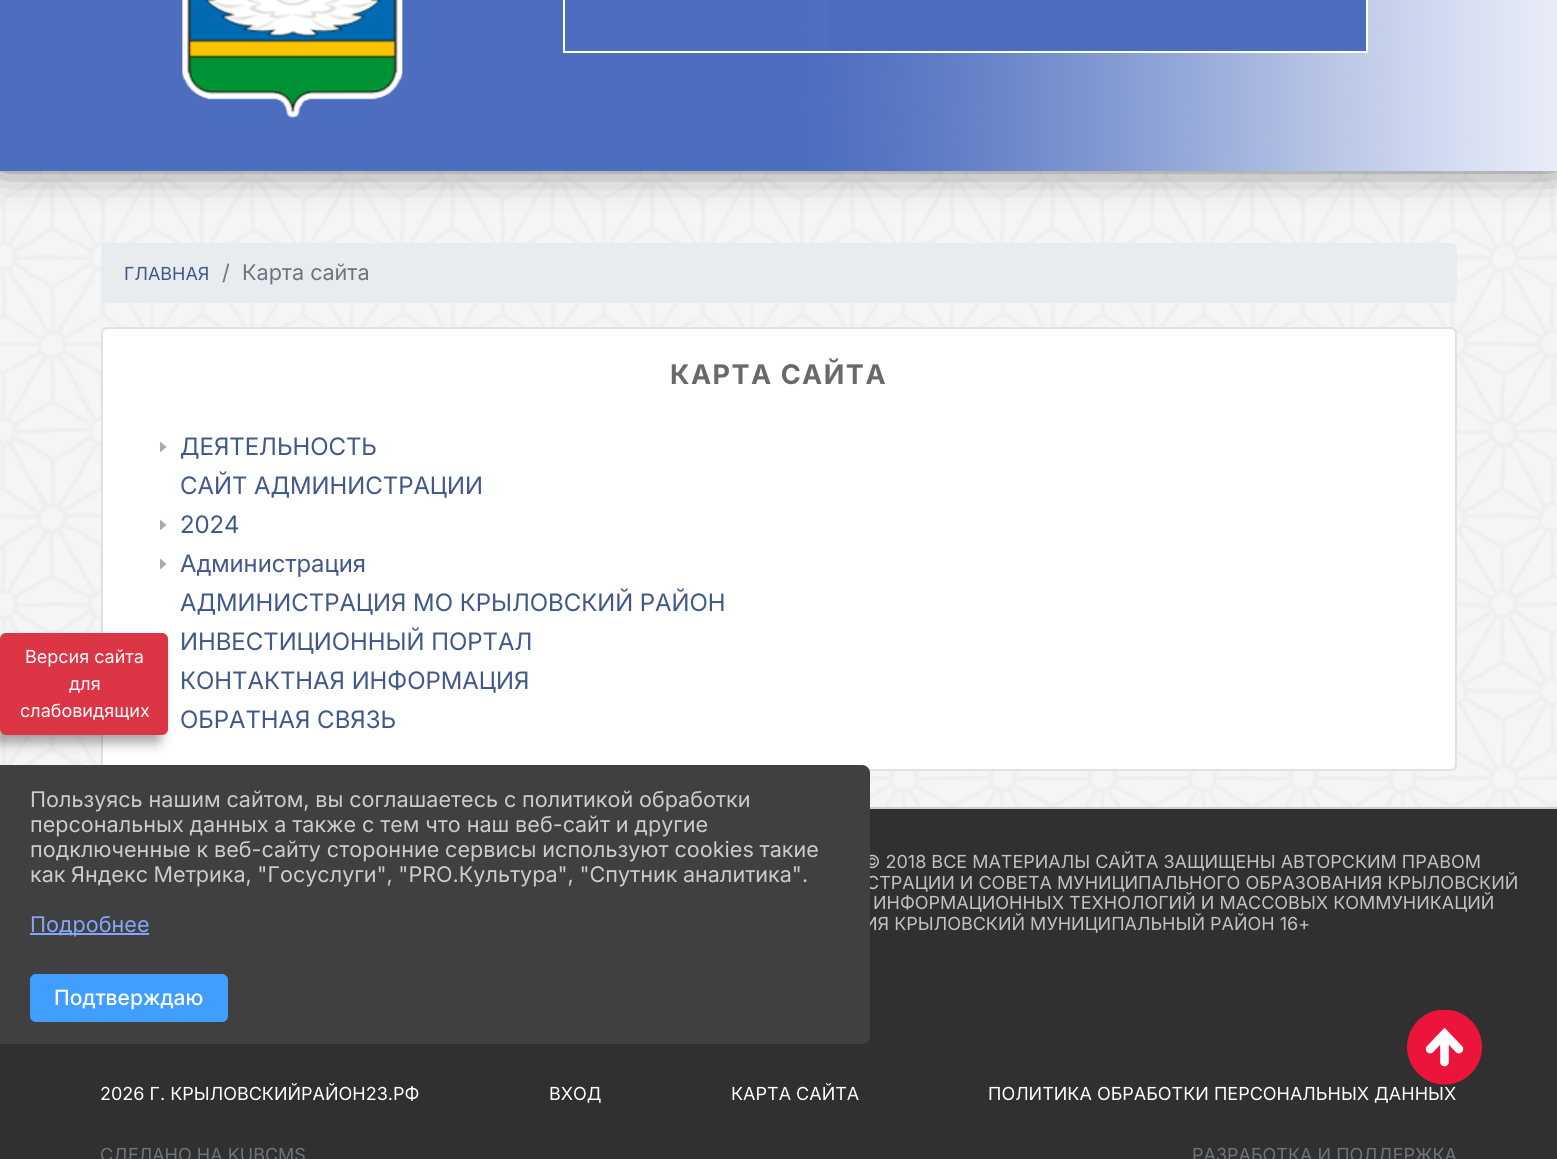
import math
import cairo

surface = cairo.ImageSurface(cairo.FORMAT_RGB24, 1557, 1159)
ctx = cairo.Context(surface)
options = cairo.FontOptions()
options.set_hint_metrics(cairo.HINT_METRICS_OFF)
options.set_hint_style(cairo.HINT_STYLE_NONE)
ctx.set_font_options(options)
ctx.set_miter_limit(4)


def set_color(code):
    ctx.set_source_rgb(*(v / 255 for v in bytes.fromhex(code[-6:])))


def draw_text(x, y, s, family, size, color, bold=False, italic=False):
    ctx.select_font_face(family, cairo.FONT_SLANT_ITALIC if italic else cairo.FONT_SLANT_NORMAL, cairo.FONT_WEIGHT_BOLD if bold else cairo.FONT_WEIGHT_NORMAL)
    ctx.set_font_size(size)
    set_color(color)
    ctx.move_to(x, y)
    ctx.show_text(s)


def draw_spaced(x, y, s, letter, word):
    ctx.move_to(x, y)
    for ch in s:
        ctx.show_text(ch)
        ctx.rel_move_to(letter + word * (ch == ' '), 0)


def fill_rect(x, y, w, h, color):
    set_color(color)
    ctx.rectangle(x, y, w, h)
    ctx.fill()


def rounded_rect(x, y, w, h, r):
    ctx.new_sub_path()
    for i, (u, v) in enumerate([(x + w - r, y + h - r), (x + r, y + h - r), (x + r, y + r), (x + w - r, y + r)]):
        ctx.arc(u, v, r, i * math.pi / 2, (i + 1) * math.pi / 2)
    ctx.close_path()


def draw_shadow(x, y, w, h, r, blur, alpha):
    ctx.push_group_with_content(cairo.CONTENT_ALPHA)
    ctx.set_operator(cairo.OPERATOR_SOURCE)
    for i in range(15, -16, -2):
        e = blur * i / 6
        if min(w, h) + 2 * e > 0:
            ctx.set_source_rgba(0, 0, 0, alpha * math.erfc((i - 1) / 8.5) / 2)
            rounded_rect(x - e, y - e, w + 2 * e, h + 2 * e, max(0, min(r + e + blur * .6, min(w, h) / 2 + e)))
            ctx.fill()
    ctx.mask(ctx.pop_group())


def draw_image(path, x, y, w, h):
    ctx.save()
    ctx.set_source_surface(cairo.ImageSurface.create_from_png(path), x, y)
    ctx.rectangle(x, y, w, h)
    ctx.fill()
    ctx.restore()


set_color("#ffffff")
ctx.paint()
draw_image("assets/img1.png", 0, 171, 1557, 636)
set_color("#ffffff")
rounded_rect(101, 327, 1356, 444, 6)
ctx.fill()
rounded_rect(102, 328, 1354, 442, 5)
ctx.set_source_rgba(0, 0, 0, 0.12)
ctx.stroke()
set_color("#000000")
draw_shadow(-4, 644, 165, 99, 5, 6, 0.35)
set_color("#dc3545")
rounded_rect(1, 634, 166, 100, 5)
ctx.fill_preserve()
ctx.stroke()
draw_text(25, 663, "Версия сайта", "Inter", 18, "#ffffff")
draw_text(69, 690, "для", "Inter", 18, "#ffffff")
draw_text(20, 717, "слабовидящих", "Inter", 18, "#ffffff")
set_color("#000000")
draw_shadow(0, -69, 1557, 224, 0, 23, 1)
draw_image("assets/img2.png", 0, 0, 1557, 171)
draw_image("assets/img3.png", 181, 0, 223, 119)
fill_rect(827, 0, 539, 51, "#4d6ebf")
ctx.rectangle(564, -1, 803, 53)
set_color("#ffffff")
ctx.stroke()
set_color("#e9ecef")
rounded_rect(101, 243, 1356, 60, 6)
ctx.fill()
draw_text(124, 280, "ГЛАВНАЯ", "Inter", 18, "#405988")
draw_text(222, 280, "/", "Inter", 21.6, "#6c757d")
draw_text(242, 280, "Карта сайта", "Inter", 21.6, "#6c757d")
ctx.select_font_face("Inter", cairo.FONT_SLANT_NORMAL, cairo.FONT_WEIGHT_BOLD)
ctx.set_font_size(27)
set_color("#696969")
draw_spaced(670, 384, "КАРТА САЙТА", 1.5, 0)
set_color("#a8abb2")
ctx.new_path()
ctx.move_to(160, 441.5)
ctx.line_to(160, 452.5)
ctx.line_to(166.5, 447)
ctx.close_path()
ctx.fill()
draw_text(180, 455, "ДЕЯТЕЛЬНОСТЬ", "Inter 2", 24, "#405988")
draw_text(180, 494, "САЙТ АДМИНИСТРАЦИИ", "Inter 2", 24, "#405988")
set_color("#a8abb2")
ctx.new_path()
ctx.move_to(160, 519.5)
ctx.line_to(160, 530.5)
ctx.line_to(166.5, 525)
ctx.close_path()
ctx.move_to(160, 558.5)
ctx.line_to(160, 569.5)
ctx.line_to(166.5, 564)
ctx.close_path()
ctx.fill()
draw_text(180, 533, "2024", "Inter 2", 24, "#405988")
draw_text(180, 572, "Администрация", "Inter 2", 24, "#405988")
draw_text(180, 611, "АДМИНИСТРАЦИЯ МО КРЫЛОВСКИЙ РАЙОН", "Inter 2", 24, "#405988")
draw_text(180, 650, "ИНВЕСТИЦИОННЫЙ ПОРТАЛ", "Inter 2", 24, "#405988")
draw_text(180, 689, "КОНТАКТНАЯ ИНФОРМАЦИЯ", "Inter 2", 24, "#405988")
draw_text(180, 728, "ОБРАТНАЯ СВЯЗЬ", "Inter 2", 24, "#405988")
fill_rect(0, 809, 1557, 350, "#303030")
fill_rect(870, 807, 687, 2, "#cccccc")
draw_text(864, 868, "© 2018 ВСЕ МАТЕРИАЛЫ САЙТА ЗАЩИЩЕНЫ АВТОРСКИМ ПРАВОМ", "Inter", 18, "#c2c2c2")
draw_text(866, 889, "СТРАЦИИ И СОВЕТА МУНИЦИПАЛЬНОГО ОБРАЗОВАНИЯ КРЫЛОВСКИЙ", "Inter", 18, "#c2c2c2")
draw_text(873, 909, "ИНФОРМАЦИОННЫХ ТЕХНОЛОГИЙ И МАССОВЫХ КОММУНИКАЦИЙ", "Inter", 18, "#c2c2c2")
draw_text(864, 930, "ИЯ КРЫЛОВСКИЙ МУНИЦИПАЛЬНЫЙ РАЙОН 16+", "Inter", 18, "#c2c2c2")
draw_image("assets/img4.png", 1407, 1010, 75, 75)
draw_text(100, 1100, "2026 Г. КРЫЛОВСКИЙРАЙОН23.РФ", "Inter", 18, "#ffffff")
draw_text(549, 1100, "ВХОД", "Inter", 18, "#ffffff")
draw_text(731, 1100, "КАРТА САЙТА", "Inter", 18, "#ffffff")
draw_text(988, 1100, "ПОЛИТИКА ОБРАБОТКИ ПЕРСОНАЛЬНЫХ ДАННЫХ", "Inter", 18, "#ffffff")
draw_text(100, 1161, "СДЕЛАНО НА KUBCMS", "Inter", 18, "#6c757d")
draw_text(1192, 1161, "РАЗРАБОТКА И ПОДДЕРЖКА", "Inter", 18, "#6c757d")
set_color("#404040")
ctx.new_path()
ctx.move_to(0, 765)
ctx.line_to(862, 765)
ctx.curve_to(866.5, 765, 870, 768.5, 870, 773)
ctx.line_to(870, 1036)
ctx.curve_to(870, 1040.5, 866.5, 1044, 862, 1044)
ctx.line_to(0, 1044)
ctx.close_path()
ctx.fill()
ctx.set_font_size(21.6)
set_color("#cccccc")
draw_spaced(30, 807, "Пользуясь нашим сайтом, вы соглашаетесь с политикой обработки", 0, -0.25)
draw_spaced(30, 832, "персональных данных а также с тем что наш веб-сайт и другие", 0, -0.25)
draw_spaced(30, 857, "подключенные к веб-сайту сторонние сервисы используют cookies такие", 0, -0.25)
draw_spaced(30, 882, "как Яндекс Метрика, \"Госуслуги\", \"PRO.Культура\", \"Спутник аналитика\".", 0, -0.5)
fill_rect(30, 933, 119, 2, "#85a6f9")
draw_text(30, 932, "Подробнее", "Inter", 21.6, "#85a6f9")
set_color("#409eff")
rounded_rect(31, 975, 196, 46, 5)
ctx.fill_preserve()
ctx.stroke()
draw_text(54, 1005, "Подтверждаю", "Inter Medium", 21, "#ffffff")
surface.write_to_png("output.png")
